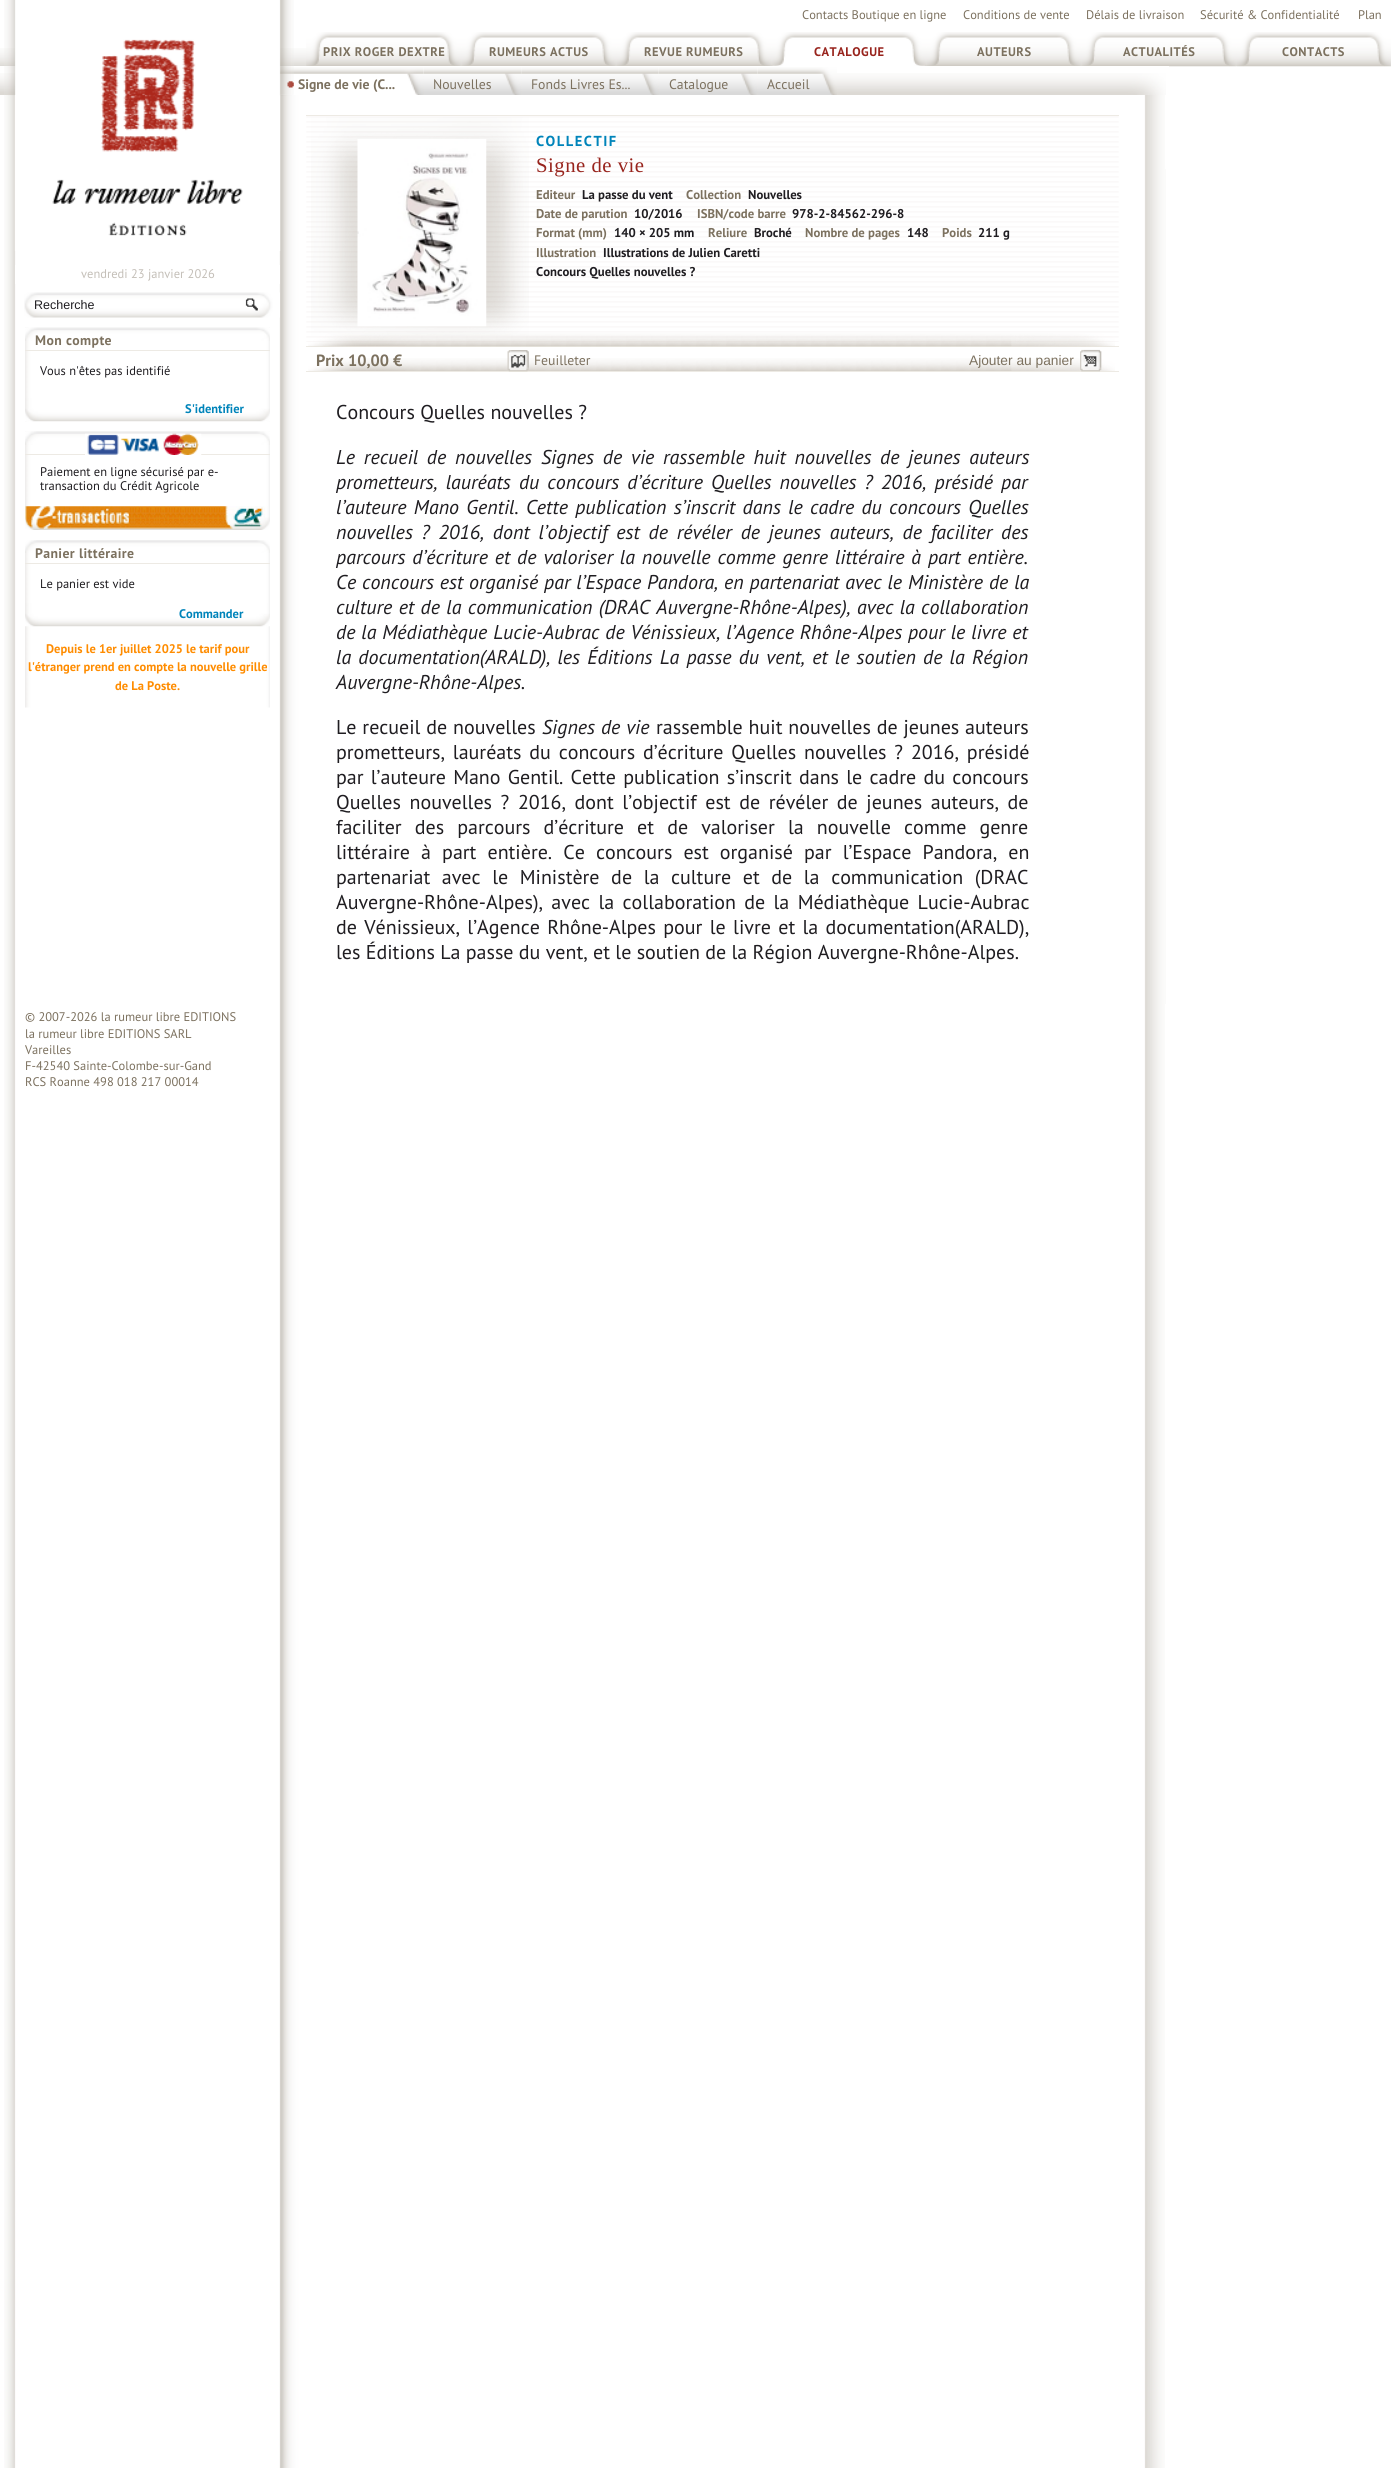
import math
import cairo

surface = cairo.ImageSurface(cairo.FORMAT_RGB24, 1391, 2468)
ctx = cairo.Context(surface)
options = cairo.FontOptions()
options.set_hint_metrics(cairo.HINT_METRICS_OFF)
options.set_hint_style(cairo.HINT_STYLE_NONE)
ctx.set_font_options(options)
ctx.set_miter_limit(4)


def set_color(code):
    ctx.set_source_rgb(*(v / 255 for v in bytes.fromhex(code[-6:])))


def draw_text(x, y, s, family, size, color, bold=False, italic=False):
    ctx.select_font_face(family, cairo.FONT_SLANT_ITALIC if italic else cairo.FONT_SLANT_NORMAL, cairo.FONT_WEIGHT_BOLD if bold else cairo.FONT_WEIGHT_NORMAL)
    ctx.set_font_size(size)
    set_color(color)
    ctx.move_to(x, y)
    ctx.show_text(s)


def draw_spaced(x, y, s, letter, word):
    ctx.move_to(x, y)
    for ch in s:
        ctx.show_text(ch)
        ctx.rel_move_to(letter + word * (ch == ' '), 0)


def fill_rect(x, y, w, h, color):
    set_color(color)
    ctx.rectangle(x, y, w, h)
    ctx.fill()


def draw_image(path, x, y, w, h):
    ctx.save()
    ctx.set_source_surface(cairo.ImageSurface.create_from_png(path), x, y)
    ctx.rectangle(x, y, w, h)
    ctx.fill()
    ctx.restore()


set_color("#ffffff")
ctx.paint()
draw_image("assets/img1.png", 4, 95, 1161, 2373)
fill_rect(1165, 169, 1, 835, "#fbfbfa")
draw_text(802, 19, "Contacts Boutique en ligne", "PT Sans", 12.5, "#7c715f")
draw_text(963, 19, "Conditions de vente", "PT Sans", 12.5, "#7c715f")
draw_text(1086, 19, "Délais de livraison", "PT Sans", 12.5, "#7c715f")
draw_text(1200, 19, "Sécurité & Confidentialité", "PT Sans", 12.5, "#7c715f")
draw_text(1358, 19, "Plan", "PT Sans", 12.5, "#7c715f")
draw_image("assets/img2.png", 0, 48, 1391, 19)
draw_image("assets/img3.png", 306, 32, 155, 34)
ctx.select_font_face("PT Sans", cairo.FONT_SLANT_NORMAL, cairo.FONT_WEIGHT_BOLD)
draw_spaced(323, 56, "PRIX ROGER DEXTRE", 0.5, 0)
draw_image("assets/img3.png", 461, 32, 155, 34)
draw_spaced(489, 56, "RUMEURS ACTUS", 0.5, 0)
draw_image("assets/img4.png", 616, 32, 155, 34)
draw_spaced(644, 56, "REVUE RUMEURS", 0.5, 0)
draw_image("assets/img5.png", 771, 32, 155, 34)
set_color("#98241d")
draw_spaced(814, 56, "CATALOGUE", 0.5, 0)
draw_image("assets/img3.png", 926, 32, 155, 34)
set_color("#7c715f")
draw_spaced(977, 56, "AUTEURS", 0.5, 0)
draw_image("assets/img6.png", 1081, 32, 155, 35)
draw_spaced(1123, 56, "ACTUALITÉS", 0.5, 0)
draw_image("assets/img7.png", 1236, 32, 155, 35)
draw_spaced(1282, 56, "CONTACTS", 0.5, 0)
fill_rect(0, 66, 1169, 1, "#ffffff")
draw_image("assets/img8.png", 0, 73, 1166, 22)
draw_image("assets/img9.png", 279, 67, 145, 28)
draw_image("assets/img10.png", 287, 81, 7, 7)
draw_text(298, 89, "Signe de vie (C...", "PT Sans", 13.75, "#7c715f", bold=True)
draw_image("assets/img11.png", 424, 67, 98, 28)
draw_text(433, 89, "Nouvelles", "PT Sans", 13.75, "#7c715f")
draw_image("assets/img12.png", 521, 67, 138, 28)
draw_text(531, 89, "Fonds Livres Es...", "PT Sans", 13.75, "#7c715f")
draw_image("assets/img13.png", 659, 67, 99, 28)
draw_text(669, 89, "Catalogue", "PT Sans", 13.75, "#7c715f")
draw_image("assets/img14.png", 757, 67, 80, 28)
draw_text(767, 89, "Accueil", "PT Sans", 13.75, "#7c715f")
draw_image("assets/img15.png", 4, 0, 290, 251)
fill_rect(15, 265, 265, 19, "#ffffff")
draw_text(81, 278, "vendredi 23 janvier 2026", "PT Sans", 12.5, "#c4bfb8")
draw_image("assets/img16.png", 24, 292, 256, 26)
draw_text(34, 309, "Recherche", "Liberation Sans", 12.5, "#1f1d21")
draw_image("assets/img17.png", 245, 298, 13, 13)
draw_image("assets/img18.png", 25, 327, 245, 95)
draw_image("assets/img19.png", 25, 327, 245, 14)
fill_rect(25, 350, 245, 1, "#edeae4")
ctx.select_font_face("PT Sans", cairo.FONT_SLANT_NORMAL, cairo.FONT_WEIGHT_BOLD)
ctx.set_font_size(13.75)
set_color("#7c715f")
draw_spaced(35, 345, "Mon compte", 0.4, 0)
draw_text(40, 375, "Vous n'êtes pas identifié", "PT Sans", 12.5, "#1f1d21")
draw_image("assets/img20.png", 25, 398, 245, 24)
draw_text(185, 413, "S'identifier", "PT Sans", 12.5, "#0084ba", bold=True)
draw_image("assets/img21.png", 25, 431, 245, 76)
draw_image("assets/img22.png", 25, 431, 245, 14)
fill_rect(25, 454, 245, 1, "#edeae4")
draw_image("assets/img23.png", 85, 433, 117, 22)
draw_text(40, 476, "Paiement en ligne sécurisé par e-", "PT Sans", 12.5, "#1f1d21")
draw_text(40, 490, "transaction du Crédit Agricole", "PT Sans", 12.5, "#1f1d21")
draw_image("assets/img24.png", 25, 506, 245, 24)
draw_image("assets/img25.png", 25, 553, 245, 155)
draw_image("assets/img26.png", 25, 540, 245, 13)
fill_rect(25, 563, 245, 1, "#edeae4")
ctx.select_font_face("PT Sans", cairo.FONT_SLANT_NORMAL, cairo.FONT_WEIGHT_BOLD)
ctx.set_font_size(13.75)
set_color("#7c715f")
draw_spaced(35, 558, "Panier littéraire", 0.4, 0)
draw_text(40, 588, "Le panier est vide", "PT Sans", 12.5, "#1f1d21")
draw_image("assets/img27.png", 25, 603, 245, 24)
draw_text(179, 618, "Commander", "PT Sans", 12.5, "#0084ba", bold=True)
draw_text(46, 653, "Depuis le 1er juillet 2025 le tarif pour", "PT Sans", 12.5, "#ff8c00", bold=True)
draw_text(28, 671, "l'étranger prend en compte la nouvelle grille", "PT Sans", 12.5, "#ff8c00", bold=True)
draw_text(115, 690, "de La Poste.", "PT Sans", 12.5, "#ff8c00", bold=True)
draw_image("assets/img28.png", 306, 116, 813, 226)
fill_rect(306, 346, 813, 1, "#edeae4")
draw_image("assets/img29.png", 308, 333, 807, 14)
fill_rect(306, 115, 813, 1, "#edeae4")
draw_image("assets/img30.png", 311, 117, 218, 219)
draw_image("assets/img31.png", 357, 139, 130, 188)
ctx.set_font_size(14.5)
set_color("#0084ba")
draw_spaced(536, 146, "COLLECTIF", 1.5, 0)
ctx.select_font_face("Liberation Serif")
ctx.set_font_size(20.75)
set_color("#98241d")
draw_spaced(536, 172, "Signe de vie", 0.5, 0)
draw_text(536, 199, "Editeur", "PT Sans", 12.75, "#7c715f", bold=True)
draw_text(582, 199, "La passe du vent", "PT Sans", 12.75, "#1f1d21", bold=True)
draw_text(686, 199, "Collection", "PT Sans", 12.75, "#7c715f", bold=True)
draw_text(748, 199, "Nouvelles", "PT Sans", 12.75, "#1f1d21", bold=True)
draw_text(536, 218, "Date de parution", "PT Sans", 12.75, "#7c715f", bold=True)
draw_text(634, 218, "10/2016", "PT Sans", 12.75, "#1f1d21", bold=True)
draw_text(697, 218, "ISBN/code barre", "PT Sans", 12.75, "#7c715f", bold=True)
draw_text(792, 218, "978-2-84562-296-8", "PT Sans", 12.75, "#1f1d21", bold=True)
draw_text(536, 237, "Format (mm)", "PT Sans", 12.75, "#7c715f", bold=True)
draw_text(614, 237, "140 × 205 mm", "PT Sans", 12.75, "#1f1d21", bold=True)
draw_text(708, 237, "Reliure", "PT Sans", 12.75, "#7c715f", bold=True)
draw_text(754, 237, "Broché", "PT Sans", 12.75, "#1f1d21", bold=True)
draw_text(805, 237, "Nombre de pages", "PT Sans", 12.75, "#7c715f", bold=True)
draw_text(907, 237, "148", "PT Sans", 12.75, "#1f1d21", bold=True)
draw_text(942, 237, "Poids", "PT Sans", 12.75, "#7c715f", bold=True)
draw_text(978, 237, "211 g", "PT Sans", 12.75, "#1f1d21", bold=True)
draw_text(536, 257, "Illustration", "PT Sans", 12.75, "#7c715f", bold=True)
draw_text(603, 257, "Illustrations de Julien Caretti", "PT Sans", 12.75, "#1f1d21", bold=True)
draw_text(536, 276, "Concours Quelles nouvelles ?", "PT Sans", 12.75, "#1f1d21", bold=True)
draw_image("assets/img32.png", 308, 358, 807, 13)
fill_rect(306, 371, 813, 1, "#edeae4")
draw_text(316, 366, "Prix 10,00 €", "PT Sans", 16.25, "#7c715f", bold=True)
draw_image("assets/img33.png", 507, 350, 22, 22)
draw_text(534, 365, "Feuilleter", "PT Sans", 13.75, "#7c715f")
draw_image("assets/img34.png", 1080, 349, 22, 23)
draw_text(969, 365, "Ajouter au panier", "Liberation Sans", 13.75, "#7c715f")
draw_text(336, 419, "Concours Quelles nouvelles ?", "PT Sans", 20, "#1f1d21")
ctx.select_font_face("PT Sans", cairo.FONT_SLANT_ITALIC)
draw_spaced(336, 464, "Le recueil de nouvelles", 0, 3.4)
draw_spaced(541, 464, "Signes de vie", 0, 3.4)
draw_spaced(663, 464, "rassemble huit nouvelles de jeunes auteurs", 0, 3.4)
draw_spaced(336, 489, "prometteurs, lauréats du concours d’écriture Quelles nouvelles ? 2016, présidé par", 0, 2.75)
draw_spaced(336, 514, "l’auteure Mano Gentil. Cette publication s’inscrit dans le cadre du concours Quelles", 0, 1.9)
draw_spaced(336, 539, "nouvelles ? 2016, dont l’objectif est de révéler de jeunes auteurs, de faciliter des", 0, 3.4)
draw_spaced(336, 564, "parcours d’écriture et de valoriser la nouvelle comme genre littéraire à part entière.", 0, 1.5)
draw_spaced(336, 589, "Ce concours est organisé par l’Espace Pandora, en partenariat avec le Ministère de la", 0, 0.5)
draw_spaced(336, 614, "culture et de la communication (DRAC Auvergne-Rhône-Alpes), avec la collaboration", 0, 1)
draw_spaced(336, 639, "de la Médiathèque Lucie-Aubrac de Vénissieux, l’Agence Rhône-Alpes pour le livre et", 0, 0.5)
draw_spaced(336, 664, "la documentation(ARALD), les Éditions La passe du vent, et le soutien de la Région", 0, 1.8)
draw_text(336, 689, "Auvergne-Rhône-Alpes.", "PT Sans", 20, "#1f1d21", italic=True)
ctx.select_font_face("PT Sans")
draw_spaced(336, 734, "Le recueil de nouvelles", 0, 0.5)
ctx.select_font_face("PT Sans", cairo.FONT_SLANT_ITALIC)
draw_spaced(542, 734, "Signes de vie", 0, 0.5)
ctx.select_font_face("PT Sans")
draw_spaced(656, 734, "rassemble huit nouvelles de jeunes auteurs", 0, 0.5)
draw_spaced(336, 759, "prometteurs, lauréats du concours d’écriture Quelles nouvelles ? 2016, présidé", 0, 2.5)
draw_spaced(336, 784, "par l’auteure Mano Gentil. Cette publication s’inscrit dans le cadre du concours", 0, 1.9)
draw_spaced(336, 809, "Quelles nouvelles ? 2016, dont l’objectif est de révéler de jeunes auteurs, de", 0, 3.25)
draw_spaced(336, 834, "faciliter des parcours d’écriture et de valoriser la nouvelle comme genre", 0, 7.75)
draw_spaced(336, 859, "littéraire à part entière. Ce concours est organisé par l’Espace Pandora, en", 0, 5.75)
draw_spaced(336, 884, "partenariat avec le Ministère de la culture et de la communication (DRAC", 0, 6.25)
draw_spaced(336, 909, "Auvergne-Rhône-Alpes), avec la collaboration de la Médiathèque Lucie-Aubrac", 0, 3)
draw_spaced(336, 934, "de Vénissieux, l’Agence Rhône-Alpes pour le livre et la documentation(ARALD),", 0, 2)
draw_text(336, 959, "les Éditions La passe du vent, et le soutien de la Région Auvergne-Rhône-Alpes.", "PT Sans", 20, "#1f1d21")
draw_text(25, 1021, "© 2007-2026 la rumeur libre EDITIONS", "PT Sans", 12.5, "#7c715f")
draw_text(25, 1038, "la rumeur libre EDITIONS SARL", "PT Sans", 12.5, "#7c715f")
draw_text(25, 1054, "Vareilles", "PT Sans", 12.5, "#7c715f")
draw_text(25, 1070, "F-42540 Sainte-Colombe-sur-Gand", "PT Sans", 12.5, "#7c715f")
draw_text(25, 1086, "RCS Roanne 498 018 217 00014", "PT Sans", 12.5, "#7c715f")
surface.write_to_png("output.png")
